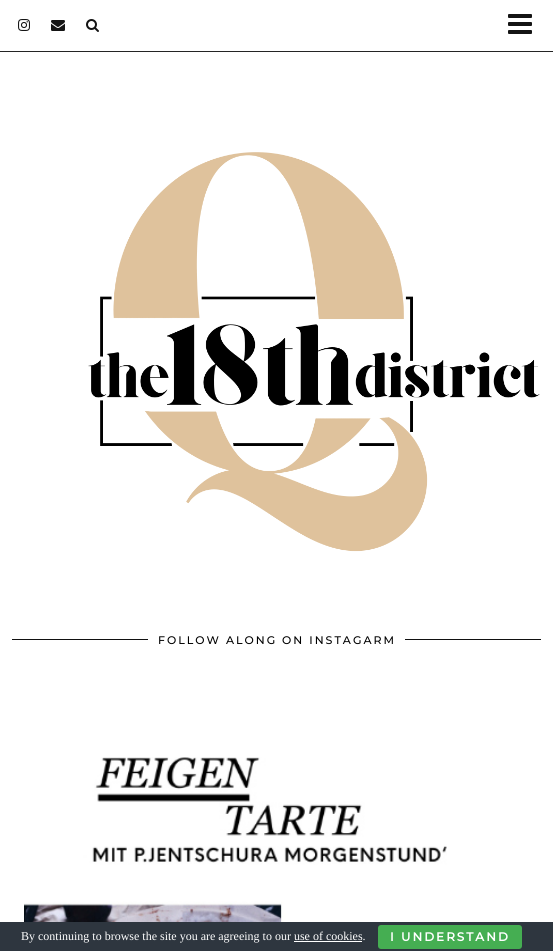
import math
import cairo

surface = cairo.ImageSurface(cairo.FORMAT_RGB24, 553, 951)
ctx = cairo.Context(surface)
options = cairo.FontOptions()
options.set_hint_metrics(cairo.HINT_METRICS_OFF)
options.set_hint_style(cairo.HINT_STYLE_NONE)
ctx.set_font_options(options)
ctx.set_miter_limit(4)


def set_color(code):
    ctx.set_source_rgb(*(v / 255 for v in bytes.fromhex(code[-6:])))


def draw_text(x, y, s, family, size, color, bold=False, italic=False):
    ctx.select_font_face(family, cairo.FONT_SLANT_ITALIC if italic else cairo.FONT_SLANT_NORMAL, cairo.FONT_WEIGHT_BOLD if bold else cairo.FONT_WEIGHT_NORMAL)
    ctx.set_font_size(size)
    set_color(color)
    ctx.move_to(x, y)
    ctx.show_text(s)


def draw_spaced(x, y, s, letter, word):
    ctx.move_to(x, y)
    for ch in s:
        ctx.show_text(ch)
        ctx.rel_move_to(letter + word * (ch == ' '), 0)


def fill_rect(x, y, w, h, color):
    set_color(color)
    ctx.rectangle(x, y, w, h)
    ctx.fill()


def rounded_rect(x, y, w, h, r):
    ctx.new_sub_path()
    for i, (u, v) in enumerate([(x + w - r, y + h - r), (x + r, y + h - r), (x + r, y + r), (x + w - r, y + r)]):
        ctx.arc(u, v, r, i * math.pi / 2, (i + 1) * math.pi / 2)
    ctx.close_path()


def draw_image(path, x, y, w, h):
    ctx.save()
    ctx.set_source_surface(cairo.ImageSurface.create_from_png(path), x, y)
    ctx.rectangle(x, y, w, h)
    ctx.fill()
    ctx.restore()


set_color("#ffffff")
ctx.paint()
fill_rect(0, 51, 553, 1, "#242424")
draw_image("assets/img1.png", 18, 19, 12, 12)
draw_image("assets/img2.png", 51, 20, 14, 11)
draw_image("assets/img3.png", 86, 19, 13, 13)
draw_image("assets/img4.png", 508, 14, 24, 20)
draw_image("assets/img5.png", 88, 152, 452, 400)
fill_rect(12, 639, 529, 1, "#111111")
fill_rect(148, 639, 257, 1, "#ffffff")
ctx.select_font_face("Montserrat Thin")
ctx.set_font_size(11)
set_color("#000000")
draw_spaced(158, 644, "FOLLOW ALONG ON INSTAGARM", 2, 0)
draw_image("assets/img6.png", 24, 757, 423, 165)
fill_rect(0, 922, 553, 29, "#2e363f")
draw_text(21, 940, "By continuing to browse the site you are agreeing to our use of cookies.", "Liberation Serif", 12, "#ffffff")
set_color("#45ae52")
rounded_rect(378, 925, 144, 24, 3)
ctx.fill()
ctx.select_font_face("Montserrat", cairo.FONT_SLANT_NORMAL, cairo.FONT_WEIGHT_BOLD)
set_color("#ffffff")
draw_spaced(390, 941, "I UNDERSTAND", 2, 0)
fill_rect(294, 941, 68, 1, "#ffffff")
surface.write_to_png("output.png")
